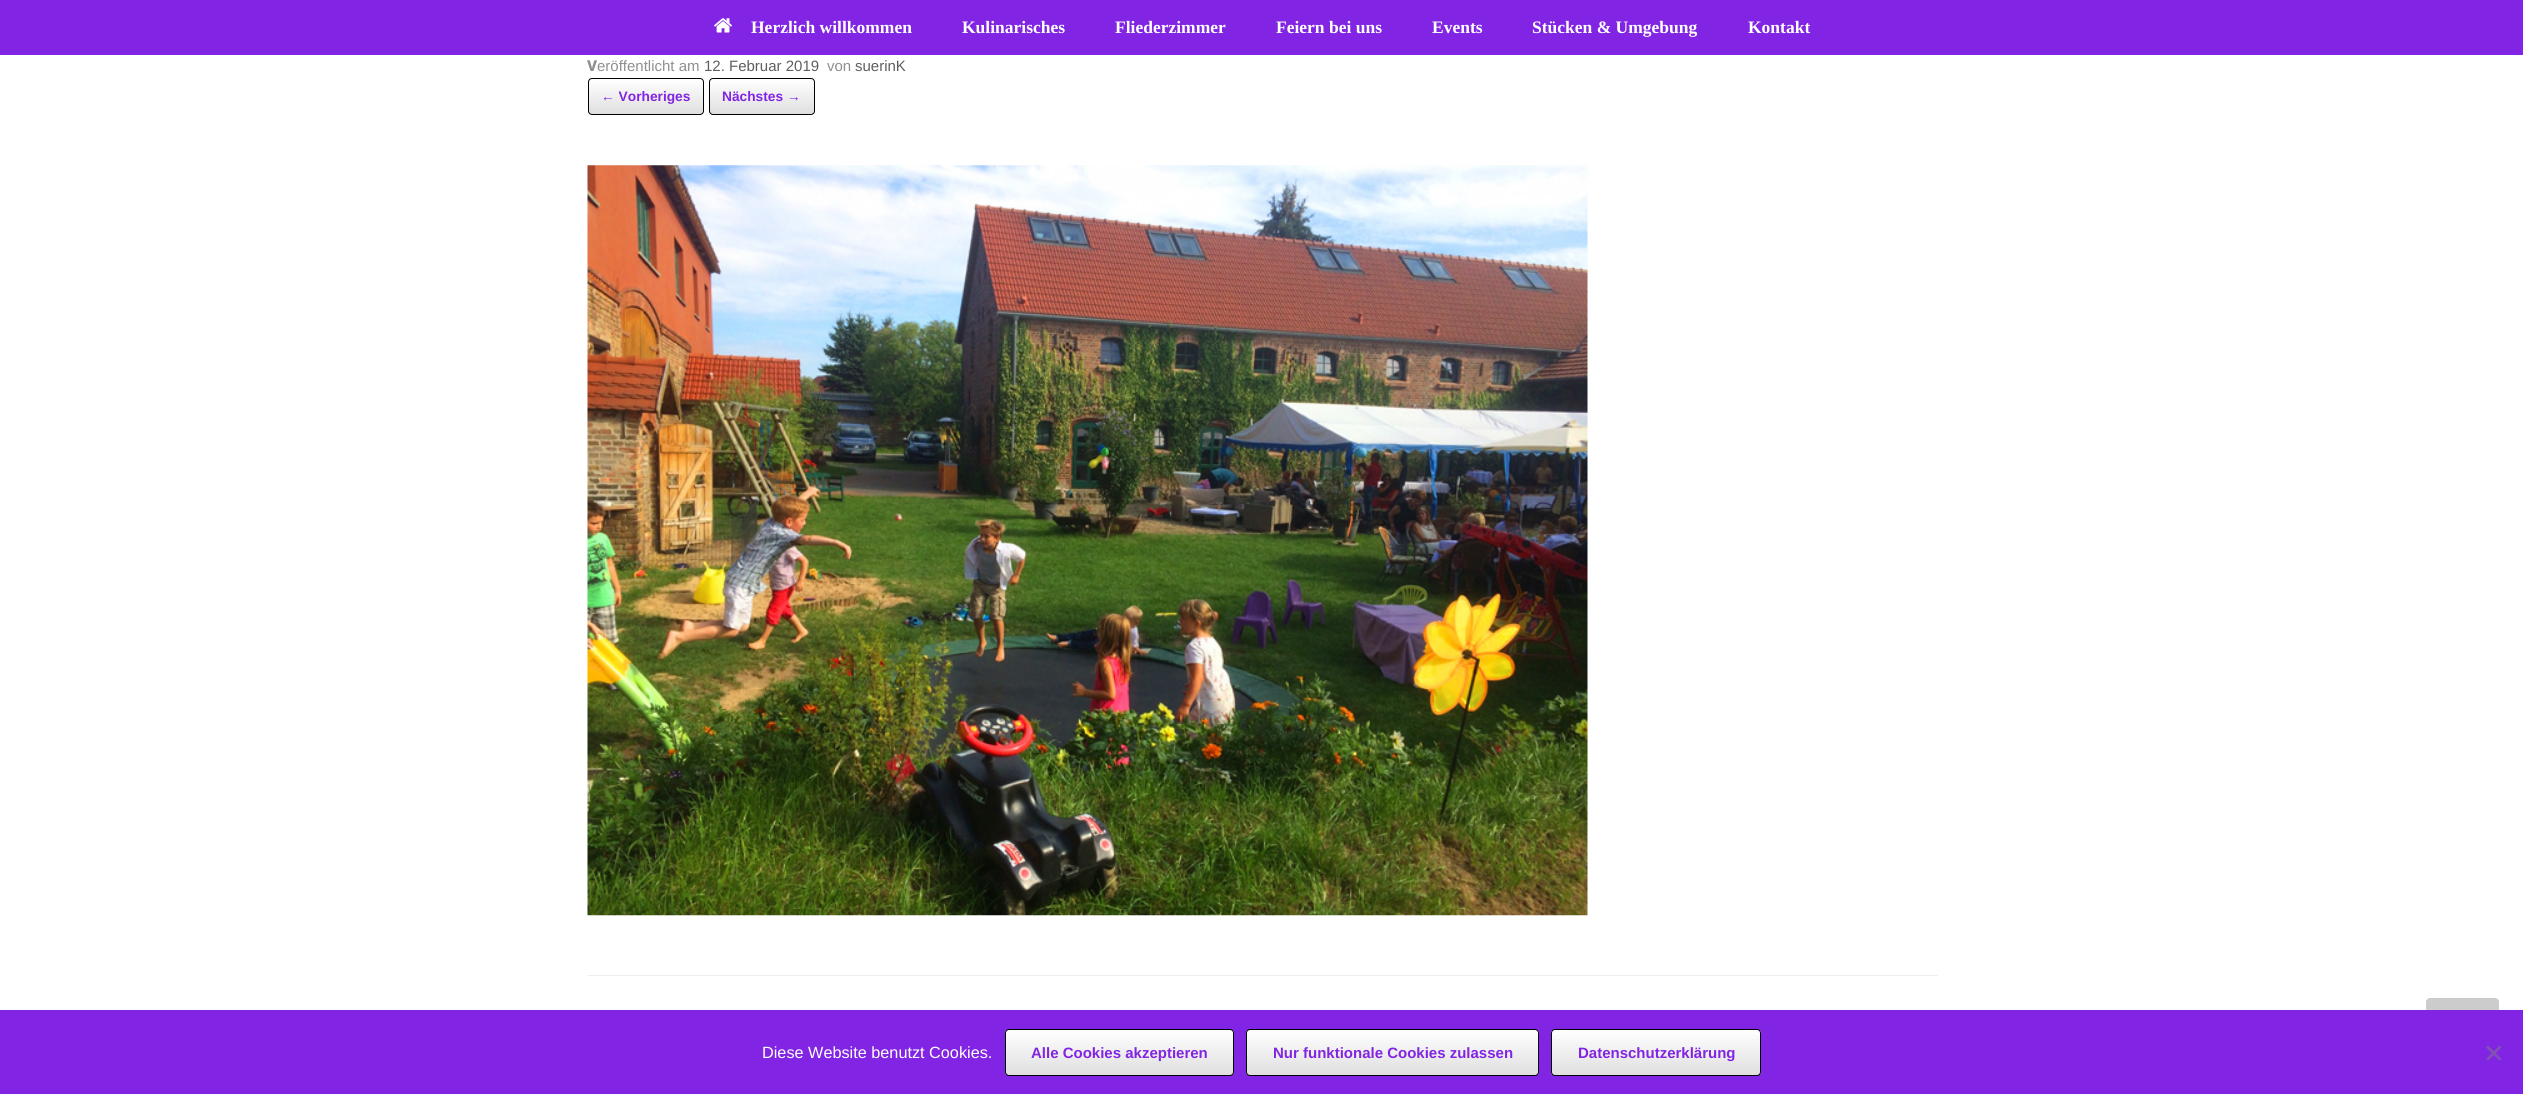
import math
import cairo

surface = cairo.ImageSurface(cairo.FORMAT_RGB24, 2523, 1094)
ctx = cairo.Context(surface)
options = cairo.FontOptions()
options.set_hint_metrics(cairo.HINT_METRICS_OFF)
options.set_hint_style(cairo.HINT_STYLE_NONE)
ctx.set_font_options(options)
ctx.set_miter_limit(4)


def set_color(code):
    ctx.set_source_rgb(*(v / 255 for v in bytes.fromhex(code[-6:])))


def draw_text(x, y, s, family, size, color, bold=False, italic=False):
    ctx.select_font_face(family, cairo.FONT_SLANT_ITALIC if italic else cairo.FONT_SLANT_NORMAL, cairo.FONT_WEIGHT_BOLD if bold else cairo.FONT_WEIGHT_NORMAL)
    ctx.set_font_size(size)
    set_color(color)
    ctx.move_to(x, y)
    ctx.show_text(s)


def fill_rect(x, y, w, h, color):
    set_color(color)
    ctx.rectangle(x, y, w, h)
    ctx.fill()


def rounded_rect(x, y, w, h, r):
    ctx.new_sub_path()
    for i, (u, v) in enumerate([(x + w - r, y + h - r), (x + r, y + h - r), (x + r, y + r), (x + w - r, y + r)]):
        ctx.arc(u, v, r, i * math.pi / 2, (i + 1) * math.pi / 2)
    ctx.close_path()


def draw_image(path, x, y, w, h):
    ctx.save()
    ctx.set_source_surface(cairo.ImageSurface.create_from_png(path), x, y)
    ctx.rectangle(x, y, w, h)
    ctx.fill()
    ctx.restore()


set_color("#ffffff")
ctx.paint()
fill_rect(0, 0, 2523, 55, "#8224e3")
draw_image("assets/img1.png", 714, 18, 18, 15)
draw_text(751, 33, "Herzlich willkommen", "Liberation Serif", 17.5, "#ffffff", bold=True)
draw_text(962, 33, "Kulinarisches", "Liberation Serif", 17.5, "#ffffff", bold=True)
draw_text(1115, 33, "Fliederzimmer", "Liberation Serif", 17.5, "#ffffff", bold=True)
draw_text(1276, 33, "Feiern bei uns", "Liberation Serif", 17.5, "#ffffff", bold=True)
draw_text(1432, 33, "Events", "Liberation Serif", 17.5, "#ffffff", bold=True)
draw_text(1532, 33, "Stücken & Umgebung", "Liberation Serif", 17.5, "#ffffff", bold=True)
draw_text(1748, 33, "Kontakt", "Liberation Serif", 17.5, "#ffffff", bold=True)
fill_rect(588, 975, 1350, 1, "#eeeeee")
draw_text(587, 71, "V", "Noto Sans ExtraBold", 15, "#8f8f8f")
draw_text(597, 71, "eröffentlicht am", "Liberation Sans", 15, "#8f8f8f")
draw_text(704, 71, "12. Februar 2019", "Liberation Sans", 15, "#5e5e5e")
draw_text(827, 71, "von", "Liberation Sans", 15, "#8f8f8f")
draw_text(855, 71, "suerinK", "Liberation Sans", 15, "#5e5e5e")
ctx.save()
rounded_rect(588, 78, 116, 37, 4)
ctx.clip()
gradient = cairo.LinearGradient(589, 114, 589, 79)
gradient.add_color_stop_rgba(0, 0.875, 0.875, 0.875, 1)
gradient.add_color_stop_rgba(1, 1, 1, 1, 1)
ctx.set_source(gradient)
ctx.rectangle(588, 79, 116, 35)
ctx.fill()
ctx.restore()
rounded_rect(588.5, 78.5, 115, 36, 3.5)
set_color("#000000")
ctx.set_line_width(1)
ctx.stroke()
draw_text(601, 101, "← Vorheriges", "Liberation Sans", 13.75, "#8224e3", bold=True)
ctx.save()
rounded_rect(709, 78, 106, 37, 4)
ctx.clip()
gradient = cairo.LinearGradient(710, 114, 710, 79)
gradient.add_color_stop_rgba(0, 0.875, 0.875, 0.875, 1)
gradient.add_color_stop_rgba(1, 1, 1, 1, 1)
ctx.set_source(gradient)
ctx.rectangle(709, 79, 106, 35)
ctx.fill()
ctx.restore()
rounded_rect(709.5, 78.5, 105, 36, 3.5)
set_color("#000000")
ctx.stroke()
draw_text(722, 101, "Nächstes →", "Liberation Sans", 13.75, "#8224e3", bold=True)
draw_image("assets/img2.png", 587, 165, 1001, 751)
set_color("#cccccc")
rounded_rect(2426, 998, 73, 72, 4)
ctx.fill()
fill_rect(0, 1010, 2523, 84, "#8224e3")
draw_text(762, 1058, "Diese Website benutzt Cookies.", "Liberation Sans", 16.25, "#ffffff")
ctx.save()
rounded_rect(1005, 1029, 229, 47, 4)
ctx.clip()
gradient = cairo.LinearGradient(1006, 1075, 1006, 1030)
gradient.add_color_stop_rgba(0, 0.875, 0.875, 0.875, 1)
gradient.add_color_stop_rgba(1, 1, 1, 1, 1)
ctx.set_source(gradient)
ctx.rectangle(1005, 1030, 229, 45)
ctx.fill()
ctx.restore()
rounded_rect(1005.5, 1029.5, 228, 46, 3.5)
set_color("#000000")
ctx.stroke()
draw_text(1031, 1058, "Alle Cookies akzeptieren", "Liberation Sans", 15, "#8224e3", bold=True)
ctx.save()
rounded_rect(1246, 1029, 293, 47, 4)
ctx.clip()
gradient = cairo.LinearGradient(1248, 1075, 1248, 1030)
gradient.add_color_stop_rgba(0, 0.875, 0.875, 0.875, 1)
gradient.add_color_stop_rgba(1, 1, 1, 1, 1)
ctx.set_source(gradient)
ctx.rectangle(1246, 1030, 293, 45)
ctx.fill()
ctx.restore()
rounded_rect(1246.5, 1029.5, 292, 46, 3.5)
set_color("#000000")
ctx.stroke()
draw_text(1273, 1058, "Nur funktionale Cookies zulassen", "Liberation Sans", 15, "#8224e3", bold=True)
ctx.save()
rounded_rect(1551, 1029, 210, 47, 4)
ctx.clip()
gradient = cairo.LinearGradient(1553, 1075, 1553, 1030)
gradient.add_color_stop_rgba(0, 0.875, 0.875, 0.875, 1)
gradient.add_color_stop_rgba(1, 1, 1, 1, 1)
ctx.set_source(gradient)
ctx.rectangle(1551, 1030, 210, 45)
ctx.fill()
ctx.restore()
rounded_rect(1551.5, 1029.5, 209, 46, 3.5)
set_color("#000000")
ctx.stroke()
draw_text(1578, 1058, "Datenschutzerklärung", "Liberation Sans", 15, "#8224e3", bold=True)
set_color("#8152b2")
ctx.new_path()
ctx.move_to(2499.5, 1045.5)
ctx.line_to(2501.5, 1047.5)
ctx.line_to(2488, 1060.5)
ctx.line_to(2486, 1059)
ctx.close_path()
ctx.fill()
ctx.new_path()
ctx.move_to(2486, 1047.5)
ctx.line_to(2488, 1045.5)
ctx.line_to(2501.5, 1059)
ctx.line_to(2499.5, 1060.5)
ctx.close_path()
ctx.fill()
surface.write_to_png("output.png")
